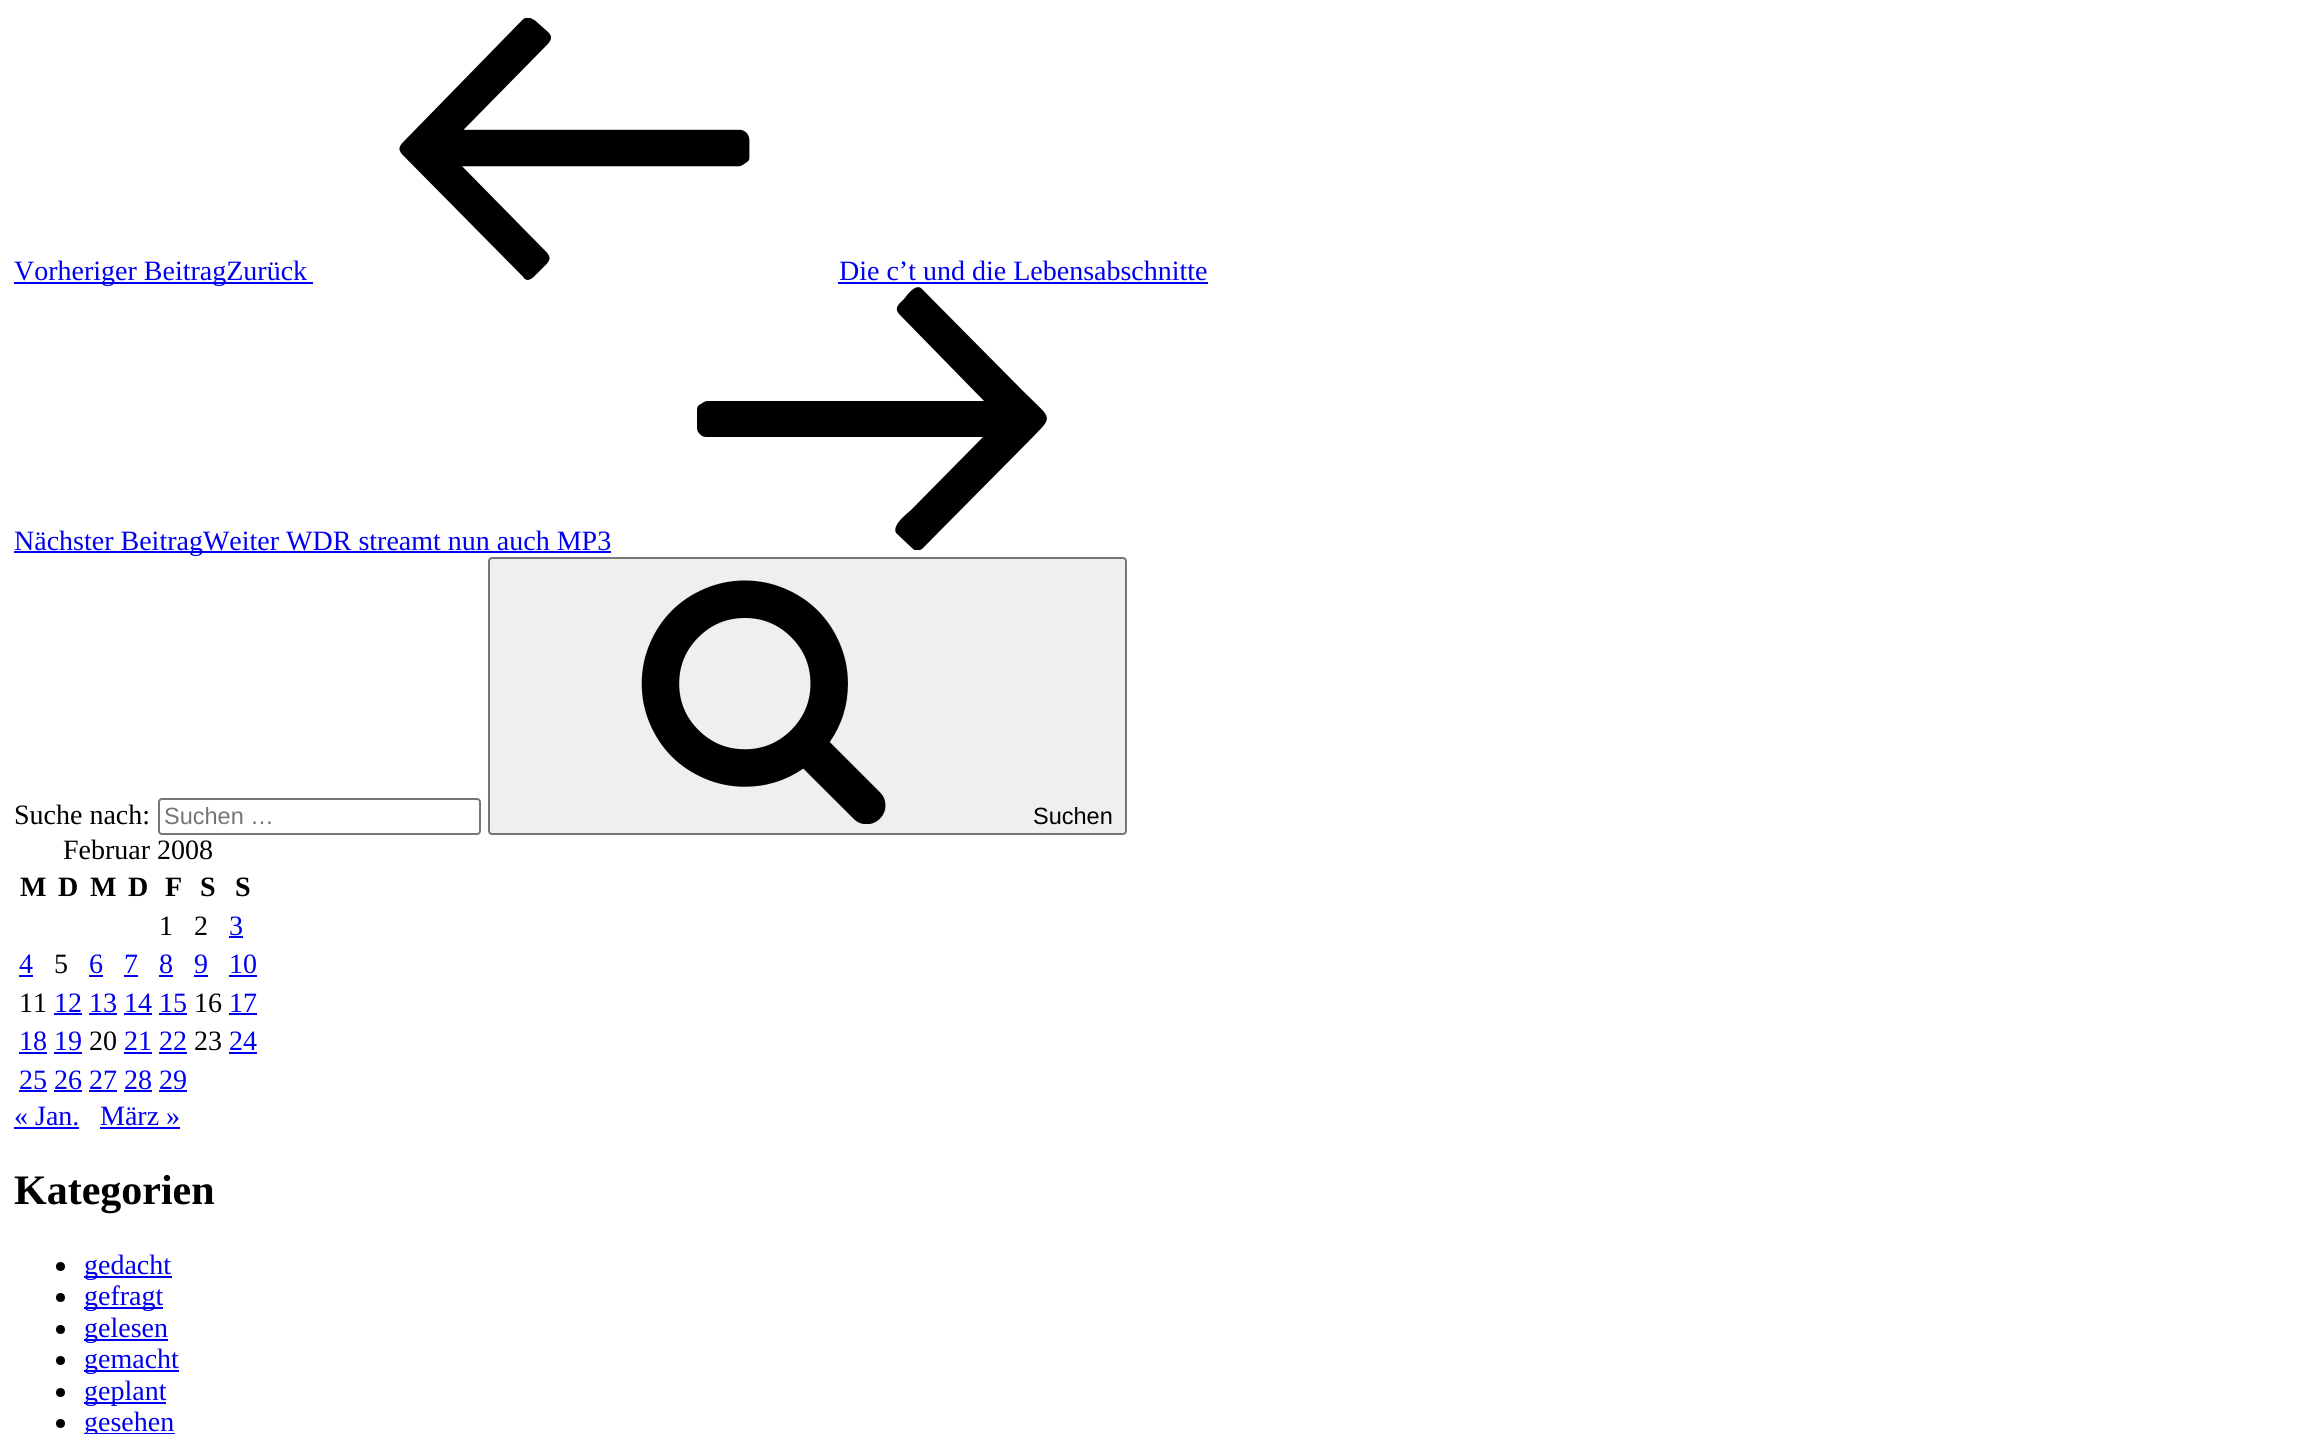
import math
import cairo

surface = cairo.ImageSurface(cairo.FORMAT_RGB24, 2306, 1434)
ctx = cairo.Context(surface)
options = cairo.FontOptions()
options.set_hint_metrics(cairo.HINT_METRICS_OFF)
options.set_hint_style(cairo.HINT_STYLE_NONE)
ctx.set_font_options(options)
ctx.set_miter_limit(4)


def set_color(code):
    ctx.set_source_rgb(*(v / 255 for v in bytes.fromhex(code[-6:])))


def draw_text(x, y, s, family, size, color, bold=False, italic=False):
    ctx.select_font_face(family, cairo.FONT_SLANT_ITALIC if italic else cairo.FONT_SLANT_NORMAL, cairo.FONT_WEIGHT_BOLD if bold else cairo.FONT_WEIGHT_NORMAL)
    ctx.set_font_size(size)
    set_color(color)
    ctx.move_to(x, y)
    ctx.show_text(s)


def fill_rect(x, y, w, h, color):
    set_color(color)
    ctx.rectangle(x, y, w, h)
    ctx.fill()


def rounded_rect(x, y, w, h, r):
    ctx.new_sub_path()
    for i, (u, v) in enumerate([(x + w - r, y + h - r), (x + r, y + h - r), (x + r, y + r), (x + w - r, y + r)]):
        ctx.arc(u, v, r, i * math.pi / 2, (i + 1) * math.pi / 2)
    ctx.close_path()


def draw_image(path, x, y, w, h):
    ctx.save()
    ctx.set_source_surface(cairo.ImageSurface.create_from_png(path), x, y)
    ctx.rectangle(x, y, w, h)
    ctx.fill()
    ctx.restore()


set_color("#ffffff")
ctx.paint()
fill_rect(14, 282, 292, 2, "#0000ee")
draw_text(14, 280, "Vorheriger BeitragZurück", "Liberation Serif", 28, "#0000ee")
fill_rect(306, 282, 7, 2, "#0000ee")
draw_image("assets/img1.png", 399, 18, 351, 262)
draw_text(839, 280, "Die c’t und die Lebensabschnitte", "Liberation Serif", 28, "#0000ee")
fill_rect(838, 282, 370, 2, "#0000ee")
fill_rect(14, 551, 264, 2, "#0000ee")
draw_text(14, 550, "Nächster BeitragWeiter WDR streamt nun auch MP3", "Liberation Serif", 28, "#0000ee")
fill_rect(278, 551, 333, 2, "#0000ee")
ctx.save()
ctx.rectangle(611, 287, 525, 263)
ctx.clip()
set_color("#000000")
ctx.new_path()
ctx.move_to(700, 434)
ctx.curve_to(701, 436, 704, 437, 706, 437)
ctx.line_to(983, 437)
ctx.line_to(912, 509)
ctx.curve_to(912, 510, 891, 524, 896, 533)
ctx.line_to(913, 549)
ctx.curve_to(916, 552, 920, 551, 923, 548)
ctx.line_to(1024, 446)
ctx.curve_to(1055, 414, 1054, 422, 1024, 392)
ctx.line_to(921, 288)
ctx.curve_to(915, 284, 907, 295, 904, 299)
ctx.curve_to(899, 304, 893, 308, 900, 315)
ctx.line_to(984, 401)
ctx.line_to(707, 401)
ctx.curve_to(706, 401, 703, 402, 701, 404)
ctx.curve_to(698, 405, 697, 407, 697, 410)
ctx.line_to(697, 428)
ctx.curve_to(697, 430, 698, 433, 700, 434)
ctx.close_path()
ctx.fill()
ctx.restore()
draw_text(14, 824, "Suche nach:", "Liberation Serif", 28, "#000000")
rounded_rect(159, 799, 321, 35, 3)
set_color("#767676")
ctx.stroke()
draw_text(164, 824, "Suchen …", "Liberation Sans", 23.5, "#757575")
set_color("#efefef")
rounded_rect(489, 558, 637, 276, 3)
ctx.fill_preserve()
set_color("#767676")
ctx.stroke()
draw_image("assets/img2.png", 641, 580, 245, 244)
draw_text(1033, 824, "Suchen", "Liberation Sans", 23.5, "#000000")
draw_text(63, 859, "Februar 2008", "Liberation Serif", 28, "#000000")
draw_text(20, 896, "M", "Liberation Serif", 28, "#000000", bold=True)
draw_text(58, 896, "D", "Liberation Serif", 28, "#000000", bold=True)
draw_text(90, 896, "M", "Liberation Serif", 28, "#000000", bold=True)
draw_text(128, 896, "D", "Liberation Serif", 28, "#000000", bold=True)
draw_text(165, 896, "F", "Liberation Serif", 28, "#000000", bold=True)
draw_text(200, 896, "S", "Liberation Serif", 28, "#000000", bold=True)
draw_text(235, 896, "S", "Liberation Serif", 28, "#000000", bold=True)
draw_text(159, 935, "1", "Liberation Serif", 28, "#000000")
draw_text(194, 935, "2", "Liberation Serif", 28, "#000000")
draw_text(229, 935, "3", "Liberation Serif", 28, "#0000ee")
fill_rect(229, 936, 14, 2, "#0000ee")
draw_text(19, 973, "4", "Liberation Serif", 28, "#0000ee")
fill_rect(19, 975, 14, 2, "#0000ee")
draw_text(54, 973, "5", "Liberation Serif", 28, "#000000")
draw_text(89, 973, "6", "Liberation Serif", 28, "#0000ee")
fill_rect(89, 975, 14, 2, "#0000ee")
draw_text(124, 973, "7", "Liberation Serif", 28, "#0000ee")
fill_rect(124, 975, 14, 2, "#0000ee")
draw_text(159, 973, "8", "Liberation Serif", 28, "#0000ee")
fill_rect(159, 975, 14, 2, "#0000ee")
draw_text(194, 973, "9", "Liberation Serif", 28, "#0000ee")
fill_rect(194, 975, 14, 2, "#0000ee")
draw_text(229, 973, "10", "Liberation Serif", 28, "#0000ee")
fill_rect(229, 975, 28, 2, "#0000ee")
draw_text(19, 1012, "11", "Liberation Serif", 28, "#000000")
draw_text(54, 1012, "12 13 14 15", "Liberation Serif", 28, "#0000ee")
fill_rect(54, 1013, 28, 2, "#0000ee")
draw_text(194, 1012, "16", "Liberation Serif", 28, "#000000")
draw_text(229, 1012, "17", "Liberation Serif", 28, "#0000ee")
fill_rect(229, 1013, 28, 2, "#0000ee")
fill_rect(89, 1013, 28, 2, "#0000ee")
fill_rect(124, 1013, 28, 2, "#0000ee")
fill_rect(159, 1013, 28, 2, "#0000ee")
draw_text(19, 1050, "18 19", "Liberation Serif", 28, "#0000ee")
fill_rect(19, 1052, 28, 2, "#0000ee")
draw_text(89, 1050, "20", "Liberation Serif", 28, "#000000")
draw_text(124, 1050, "21 22", "Liberation Serif", 28, "#0000ee")
fill_rect(124, 1052, 28, 2, "#0000ee")
draw_text(194, 1050, "23", "Liberation Serif", 28, "#000000")
draw_text(229, 1050, "24", "Liberation Serif", 28, "#0000ee")
fill_rect(229, 1052, 28, 2, "#0000ee")
fill_rect(54, 1052, 28, 2, "#0000ee")
fill_rect(159, 1052, 28, 2, "#0000ee")
draw_text(19, 1089, "25 26 27 28 29", "Liberation Serif", 28, "#0000ee")
fill_rect(19, 1090, 28, 2, "#0000ee")
fill_rect(54, 1090, 28, 2, "#0000ee")
fill_rect(89, 1090, 28, 2, "#0000ee")
fill_rect(124, 1090, 28, 2, "#0000ee")
fill_rect(159, 1090, 28, 2, "#0000ee")
draw_text(14, 1125, "« Jan.", "Liberation Serif", 28, "#0000ee")
fill_rect(14, 1127, 65, 2, "#0000ee")
draw_text(100, 1125, "März »", "Liberation Serif", 28, "#0000ee")
fill_rect(100, 1127, 80, 2, "#0000ee")
draw_text(14, 1204, "Kategorien", "Liberation Serif", 42, "#000000", bold=True)
ctx.new_path()
ctx.arc(60.5, 1266.5, 4.5, 0, 2 * math.pi)
ctx.fill()
fill_rect(84, 1276, 88, 2, "#0000ee")
draw_text(84, 1274, "gedacht", "Liberation Serif", 28, "#0000ee")
set_color("#000000")
ctx.new_path()
ctx.arc(60.5, 1297.5, 4.5, 0, 2 * math.pi)
ctx.fill()
fill_rect(84, 1307, 79, 2, "#0000ee")
draw_text(84, 1305, "gefragt", "Liberation Serif", 28, "#0000ee")
set_color("#000000")
ctx.new_path()
ctx.arc(60.5, 1329.5, 4.5, 0, 2 * math.pi)
ctx.fill()
fill_rect(84, 1339, 84, 2, "#0000ee")
draw_text(84, 1337, "gelesen", "Liberation Serif", 28, "#0000ee")
set_color("#000000")
ctx.new_path()
ctx.arc(60.5, 1360.5, 4.5, 0, 2 * math.pi)
ctx.fill()
fill_rect(84, 1370, 95, 2, "#0000ee")
draw_text(84, 1368, "gemacht", "Liberation Serif", 28, "#0000ee")
set_color("#000000")
ctx.new_path()
ctx.arc(60.5, 1392.5, 4.5, 0, 2 * math.pi)
ctx.fill()
fill_rect(84, 1402, 82, 2, "#0000ee")
draw_text(84, 1400, "geplant", "Liberation Serif", 28, "#0000ee")
set_color("#000000")
ctx.new_path()
ctx.arc(60.5, 1423.5, 4.5, 0, 2 * math.pi)
ctx.fill()
fill_rect(84, 1433, 91, 1, "#0000ee")
draw_text(84, 1431, "gesehen", "Liberation Serif", 28, "#0000ee")
surface.write_to_png("output.png")
